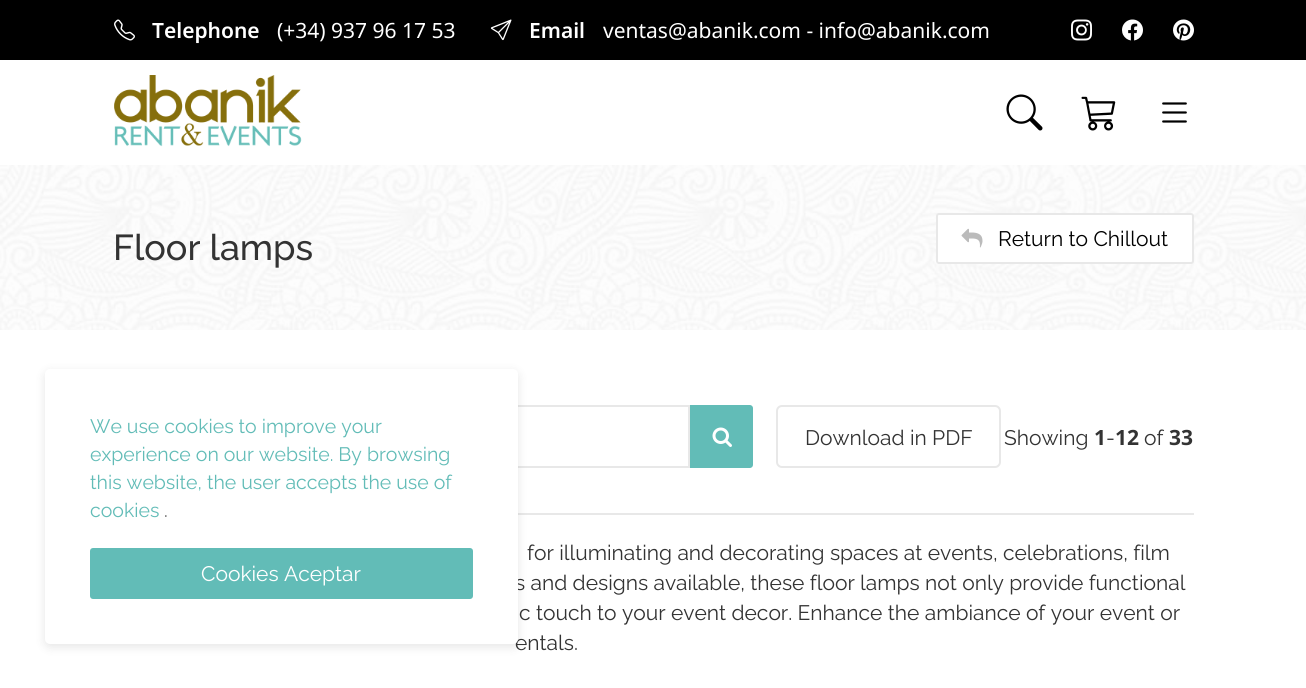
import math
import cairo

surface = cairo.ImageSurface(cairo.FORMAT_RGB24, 1306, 688)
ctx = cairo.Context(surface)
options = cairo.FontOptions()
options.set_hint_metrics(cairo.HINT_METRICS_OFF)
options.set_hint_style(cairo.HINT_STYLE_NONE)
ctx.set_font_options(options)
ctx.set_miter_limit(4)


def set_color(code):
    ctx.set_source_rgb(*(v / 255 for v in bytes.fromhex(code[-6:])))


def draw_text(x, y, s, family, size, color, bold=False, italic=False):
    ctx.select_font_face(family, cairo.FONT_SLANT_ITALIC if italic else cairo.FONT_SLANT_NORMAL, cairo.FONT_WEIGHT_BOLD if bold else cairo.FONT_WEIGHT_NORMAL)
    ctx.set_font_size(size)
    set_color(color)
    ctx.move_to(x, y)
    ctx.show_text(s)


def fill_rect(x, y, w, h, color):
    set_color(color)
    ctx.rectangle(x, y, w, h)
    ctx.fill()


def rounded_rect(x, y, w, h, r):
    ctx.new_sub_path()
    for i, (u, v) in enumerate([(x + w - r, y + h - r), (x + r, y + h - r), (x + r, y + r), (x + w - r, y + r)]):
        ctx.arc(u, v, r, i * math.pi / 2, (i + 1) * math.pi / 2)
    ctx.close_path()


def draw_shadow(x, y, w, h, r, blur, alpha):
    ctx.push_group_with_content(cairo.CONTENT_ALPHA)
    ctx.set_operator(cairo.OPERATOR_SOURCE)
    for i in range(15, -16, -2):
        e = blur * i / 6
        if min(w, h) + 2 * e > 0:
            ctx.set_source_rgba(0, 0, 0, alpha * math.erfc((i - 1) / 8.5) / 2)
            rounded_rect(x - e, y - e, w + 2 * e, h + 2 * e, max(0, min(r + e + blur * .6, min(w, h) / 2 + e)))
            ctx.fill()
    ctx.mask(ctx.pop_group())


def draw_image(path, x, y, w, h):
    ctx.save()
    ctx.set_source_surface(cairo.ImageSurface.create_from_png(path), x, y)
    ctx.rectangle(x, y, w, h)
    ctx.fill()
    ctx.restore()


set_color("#ffffff")
ctx.paint()
fill_rect(0, 0, 1306, 60, "#000000")
draw_image("assets/img1.png", 114, 19, 21, 22)
draw_text(152, 38, "Telephone", "Noto Sans SemiBold", 21, "#ffffff")
draw_text(277, 38, "(+34) 937 96 17 53", "Noto Sans", 21, "#ffffff")
draw_image("assets/img2.png", 490, 19, 22, 22)
draw_text(529, 38, "Email", "Noto Sans SemiBold", 21, "#ffffff")
draw_text(603, 38, "ventas@abanik.com - info@abanik.com", "Noto Sans", 21, "#ffffff")
draw_image("assets/img3.png", 1071, 19, 21, 22)
draw_image("assets/img4.png", 1122, 19, 21, 22)
draw_image("assets/img5.png", 1173, 19, 21, 22)
draw_image("assets/img6.png", 114, 75, 188, 72)
draw_image("assets/img7.png", 1006, 94, 37, 37)
draw_image("assets/img8.png", 1081, 96, 35, 35)
draw_image("assets/img9.png", 1162, 102, 25, 21)
draw_image("assets/img10.png", 0, 165, 1306, 165)
draw_text(113, 260, "Floor lamps", "Raleway Medium", 36, "#333333")
set_color("#ffffff")
rounded_rect(937, 214, 256, 49, 2)
ctx.fill_preserve()
set_color("#e8e8e8")
ctx.stroke()
draw_image("assets/img11.png", 961, 228, 22, 20)
draw_text(998, 246, "Return to Chillout", "Raleway", 21, "#000000")
ctx.rectangle(384, 406, 305, 61)
set_color("#e8e8e8")
ctx.stroke()
fill_rect(518, 513, 676, 2, "#e8e8e8")
set_color("#000000")
draw_shadow(45, 372, 473, 275, 5, 5, 0.1)
draw_text(515, 590, "s and designs available, these floor lamps not only provide functional", "Raleway", 21, "#333333")
draw_text(515, 650, "entals.", "Raleway", 21, "#333333")
set_color("#ffffff")
rounded_rect(45, 369, 473, 275, 5)
ctx.fill()
draw_text(90, 433, "We use cookies to improve your", "Raleway", 19.5, "#62bcb7")
draw_text(90, 461, "experience on our website. By browsing", "Raleway", 19.5, "#62bcb7")
draw_text(90, 489, "this website, the user accepts the use of", "Raleway", 19.5, "#62bcb7")
draw_text(90, 517, "cookies", "Raleway", 19.5, "#62bcb7")
draw_text(164, 517, ".", "Raleway", 19.5, "#5e5e5e")
set_color("#62bcb7")
rounded_rect(91, 549, 381, 49, 2)
ctx.fill_preserve()
ctx.stroke()
draw_text(201, 581, "Cookies Aceptar", "Raleway", 21, "#ffffff")
set_color("#62bcb7")
ctx.new_path()
ctx.move_to(690, 405)
ctx.line_to(750, 405)
ctx.curve_to(751.5, 405, 753, 406.5, 753, 408)
ctx.line_to(753, 465)
ctx.curve_to(753, 466.5, 751.5, 468, 750, 468)
ctx.line_to(690, 468)
ctx.close_path()
ctx.fill()
draw_image("assets/img12.png", 712, 427, 20, 20)
rounded_rect(777, 406, 223, 61, 5)
set_color("#e8e8e8")
ctx.stroke()
draw_text(805, 445, "Download in PDF", "Raleway", 21, "#333333")
draw_text(1004, 445, "Showing", "Raleway", 21, "#333333")
draw_text(1094, 445, "1", "Open Sans", 21, "#333333", bold=True)
draw_text(1106, 445, "-", "Raleway", 21, "#333333")
draw_text(1115, 445, "12", "Open Sans", 21, "#333333", bold=True)
draw_text(1144, 445, "of", "Raleway", 21, "#333333")
draw_text(1169, 445, "33", "Open Sans", 21, "#333333", bold=True)
draw_text(527, 560, "for illuminating and decorating spaces at events, celebrations, film", "Raleway", 21, "#333333")
draw_text(519, 620, "c touch to your event decor. Enhance the ambiance of your event or", "Raleway", 21, "#333333")
surface.write_to_png("output.png")
